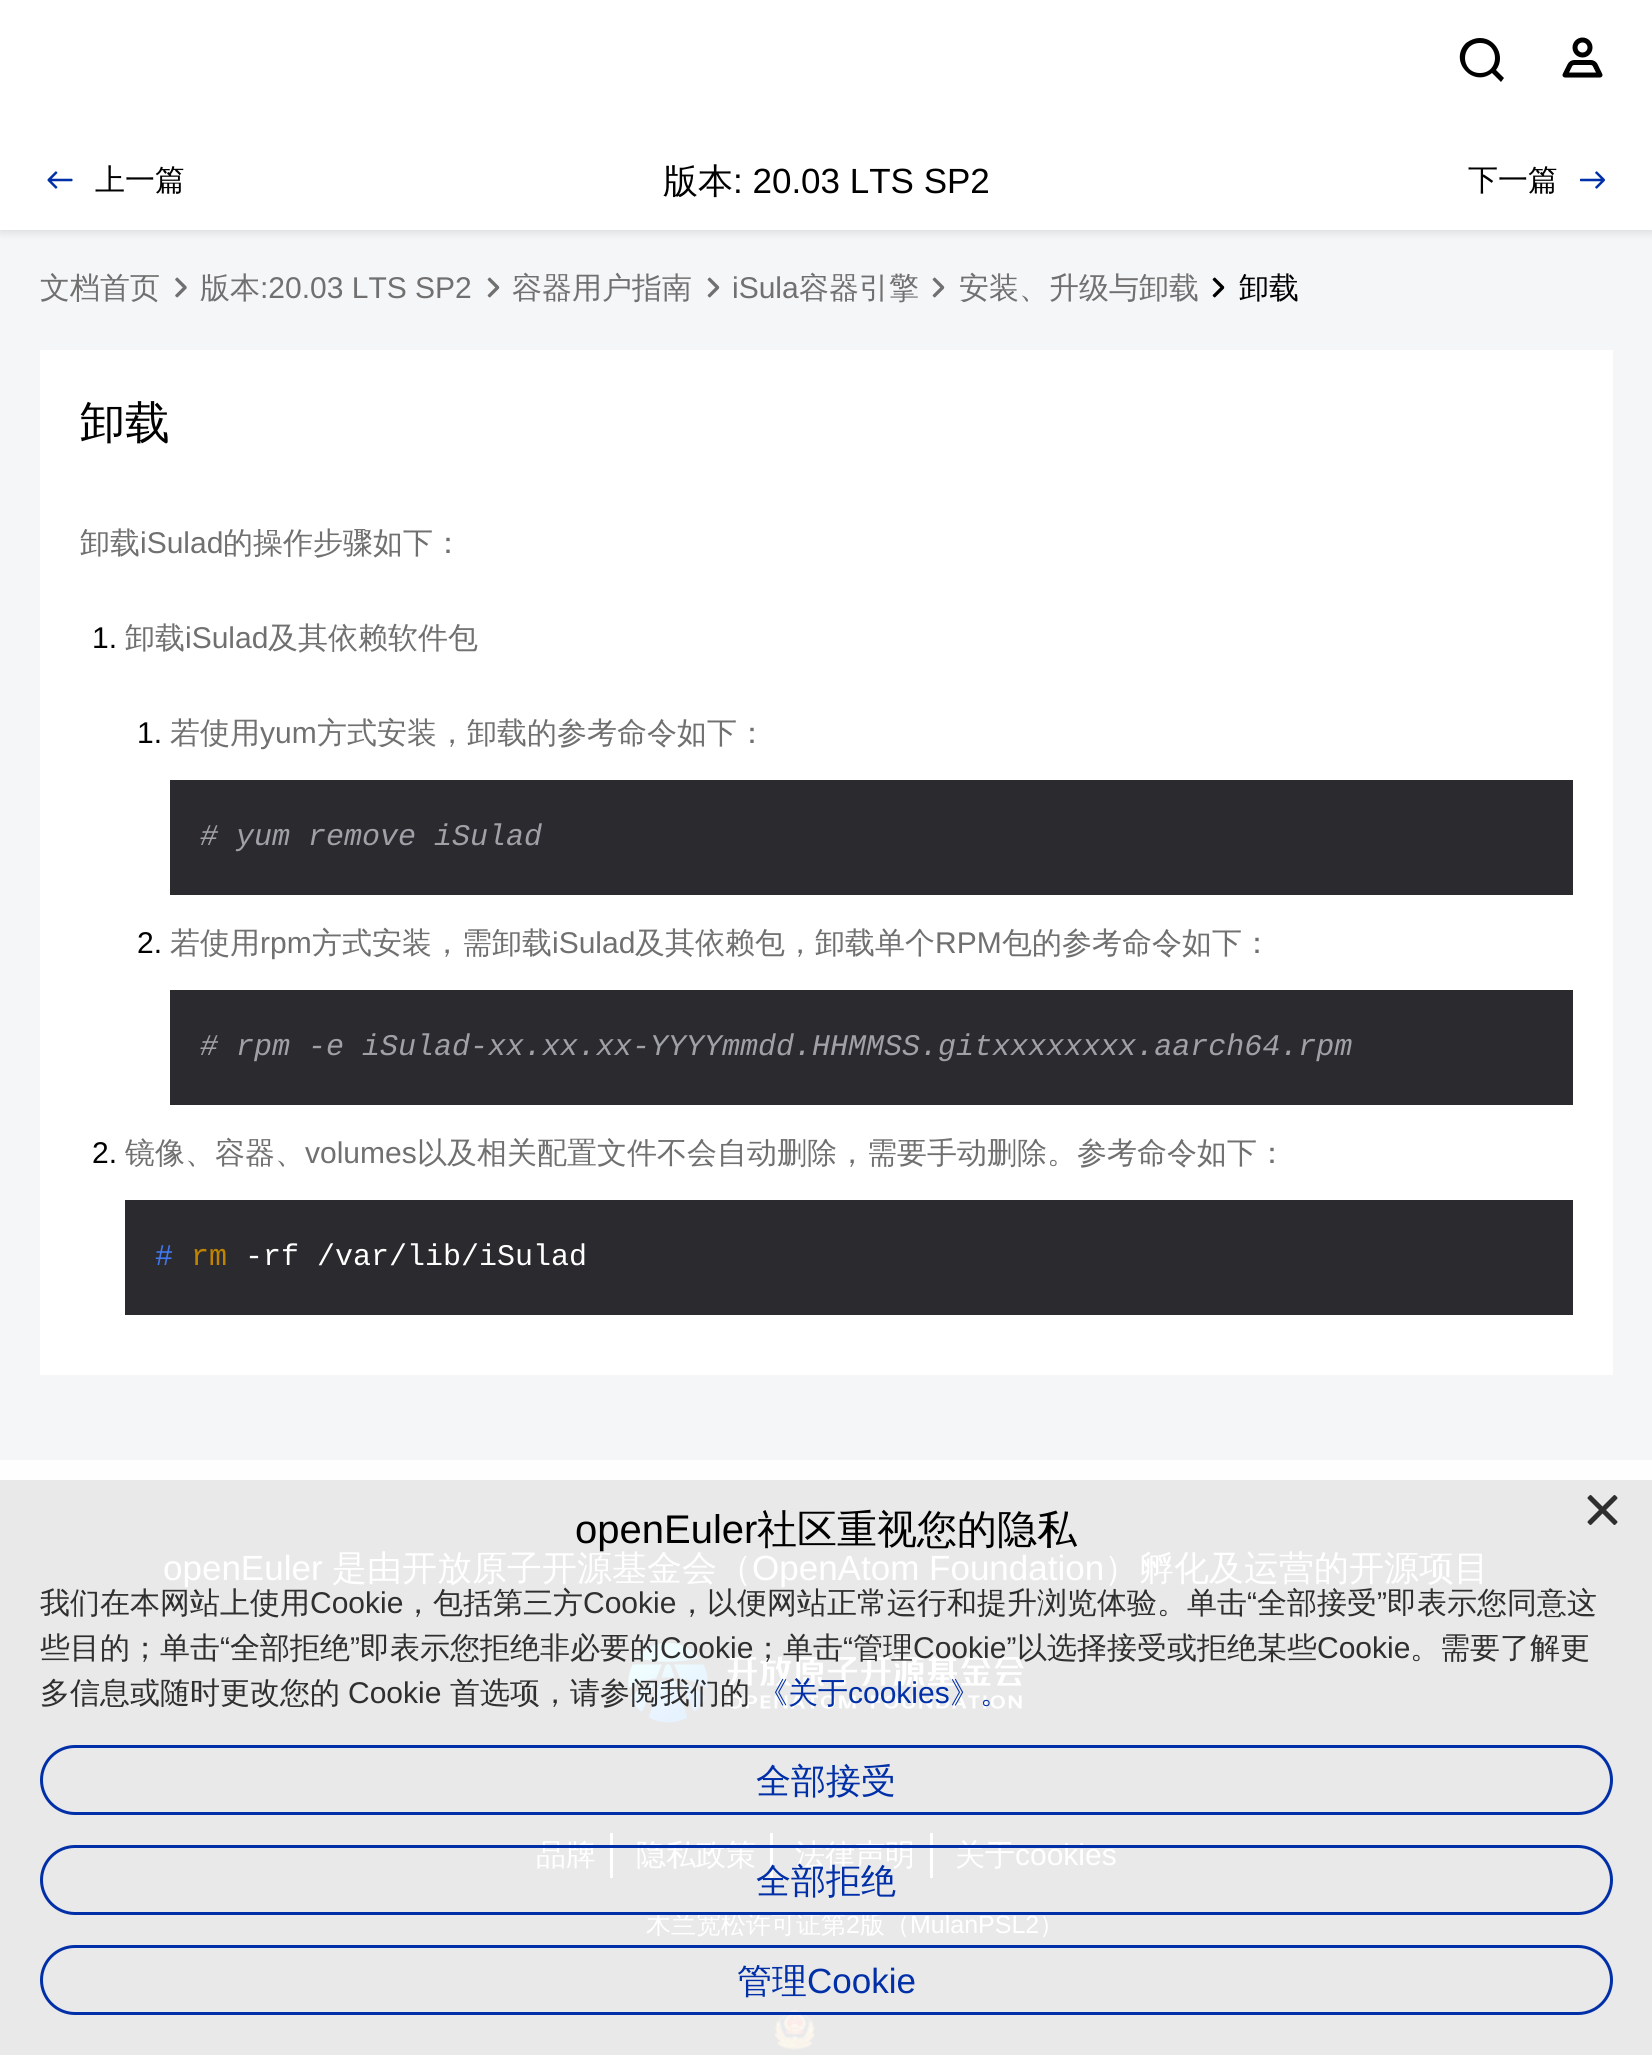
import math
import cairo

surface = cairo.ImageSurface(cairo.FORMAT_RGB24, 1652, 2055)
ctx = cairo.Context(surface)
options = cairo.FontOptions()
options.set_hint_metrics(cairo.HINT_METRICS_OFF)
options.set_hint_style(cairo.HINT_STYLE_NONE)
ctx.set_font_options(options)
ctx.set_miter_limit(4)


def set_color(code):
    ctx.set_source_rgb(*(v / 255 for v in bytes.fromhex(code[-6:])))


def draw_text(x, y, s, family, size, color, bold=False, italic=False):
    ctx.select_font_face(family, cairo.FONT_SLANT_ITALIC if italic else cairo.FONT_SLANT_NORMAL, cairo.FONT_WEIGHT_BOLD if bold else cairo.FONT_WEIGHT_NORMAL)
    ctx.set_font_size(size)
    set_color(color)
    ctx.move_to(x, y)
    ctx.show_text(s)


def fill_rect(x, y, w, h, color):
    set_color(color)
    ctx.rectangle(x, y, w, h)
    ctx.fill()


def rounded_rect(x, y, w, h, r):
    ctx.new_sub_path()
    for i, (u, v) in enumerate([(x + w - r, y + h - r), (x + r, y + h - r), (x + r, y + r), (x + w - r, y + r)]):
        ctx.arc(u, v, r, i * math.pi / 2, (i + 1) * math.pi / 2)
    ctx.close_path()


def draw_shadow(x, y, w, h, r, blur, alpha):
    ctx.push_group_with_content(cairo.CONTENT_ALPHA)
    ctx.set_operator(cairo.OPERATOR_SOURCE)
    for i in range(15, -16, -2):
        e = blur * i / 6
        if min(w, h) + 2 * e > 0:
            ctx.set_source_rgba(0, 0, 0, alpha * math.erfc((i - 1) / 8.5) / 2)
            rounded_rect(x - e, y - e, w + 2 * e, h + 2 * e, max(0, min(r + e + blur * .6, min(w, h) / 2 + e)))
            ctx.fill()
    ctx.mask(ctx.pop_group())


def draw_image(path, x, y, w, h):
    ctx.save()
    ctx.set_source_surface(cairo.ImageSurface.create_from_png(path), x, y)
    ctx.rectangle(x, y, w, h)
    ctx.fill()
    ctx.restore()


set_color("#f5f6f8")
ctx.paint()
fill_rect(0, 1460, 1652, 20, "#fefefe")
set_color("#000000")
draw_shadow(0, 123, 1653, 110, 0, 4, 0.1)
fill_rect(0, 0, 1652, 230, "#ffffff")
set_color("#000000")
ctx.new_path()
ctx.move_to(1480, 38)
ctx.curve_to(1496, 38, 1506, 57, 1496, 70)
ctx.line_to(1504, 78)
ctx.line_to(1501, 82)
ctx.line_to(1492, 73)
ctx.curve_to(1473, 88, 1448, 61, 1466, 43)
ctx.curve_to(1470, 40, 1475, 38, 1480, 38)
ctx.close_path()
ctx.move_to(1480, 43)
ctx.curve_to(1460, 43, 1460, 73, 1480, 73)
ctx.curve_to(1500, 73, 1500, 43, 1480, 43)
ctx.close_path()
ctx.fill()
draw_image("assets/img1.png", 1562, 37, 41, 41)
draw_image("assets/img2.png", 47, 171, 26, 18)
draw_text(95, 190, "上一篇", "WenQuanYi Zen Hei Medium", 30, "#000000")
draw_text(663, 193, "版本", "WenQuanYi Zen Hei Medium", 35, "#000000")
draw_text(733, 193, ": 20.03 LTS SP2", "Liberation Sans", 35, "#000000")
draw_text(1468, 190, "下一篇", "WenQuanYi Zen Hei Medium", 30, "#000000")
draw_image("assets/img3.png", 1580, 171, 25, 18)
draw_text(40, 298, "文档首页", "WenQuanYi Zen Hei Medium", 30, "#707070")
draw_image("assets/img4.png", 175, 277, 12, 21)
draw_text(200, 298, "版本", "WenQuanYi Zen Hei Medium", 30, "#707070")
draw_text(260, 298, ":20.03 LTS SP2", "Liberation Sans", 30, "#707070")
draw_image("assets/img5.png", 487, 277, 13, 21)
draw_text(512, 298, "容器用户指南", "WenQuanYi Zen Hei Medium", 30, "#707070")
draw_image("assets/img5.png", 707, 277, 13, 21)
draw_text(732, 298, "iSula", "Liberation Sans", 30, "#707070")
draw_text(799, 298, "容器引擎", "WenQuanYi Zen Hei Medium", 30, "#707070")
draw_image("assets/img5.png", 932, 277, 13, 21)
draw_text(959, 298, "安装、升级与卸载", "WenQuanYi Zen Hei Medium", 30, "#707070")
draw_image("assets/img6.png", 1212, 277, 13, 21)
draw_text(1239, 298, "卸载", "WenQuanYi Zen Hei Medium", 30, "#000000")
fill_rect(40, 350, 1573, 1025, "#ffffff")
draw_text(80, 438, "卸载", "WenQuanYi Zen Hei Medium", 45, "#000000")
draw_text(80, 553, "卸载", "WenQuanYi Zen Hei Medium", 30, "#707070")
draw_text(140, 553, "iSulad", "Liberation Sans", 30, "#707070")
draw_text(223, 553, "的操作步骤如下：", "WenQuanYi Zen Hei Medium", 30, "#707070")
draw_text(92, 648, "1.", "Liberation Sans", 30, "#000000")
draw_text(125, 648, "卸载", "WenQuanYi Zen Hei Medium", 30, "#707070")
draw_text(185, 648, "iSulad", "Liberation Sans", 30, "#707070")
draw_text(268, 648, "及其依赖软件包", "WenQuanYi Zen Hei Medium", 30, "#707070")
draw_text(137, 743, "1.", "Liberation Sans", 30, "#000000")
draw_text(170, 743, "若使用", "WenQuanYi Zen Hei Medium", 30, "#707070")
draw_text(260, 743, "yum", "Liberation Sans", 30, "#707070")
draw_text(317, 743, "方式安装，卸载的参考命令如下：", "WenQuanYi Zen Hei Medium", 30, "#707070")
fill_rect(170, 780, 1403, 115, "#2b2b2f")
draw_text(200, 845, "# yum remove iSulad", "Liberation Mono", 30, "#a0a1a7", italic=True)
draw_text(137, 953, "2.", "Liberation Sans", 30, "#000000")
draw_text(170, 953, "若使用", "WenQuanYi Zen Hei Medium", 30, "#707070")
draw_text(260, 953, "rpm", "Liberation Sans", 30, "#707070")
draw_text(312, 953, "方式安装，需卸载", "WenQuanYi Zen Hei Medium", 30, "#707070")
draw_text(552, 953, "iSulad", "Liberation Sans", 30, "#707070")
draw_text(635, 953, "及其依赖包，卸载单个", "WenQuanYi Zen Hei Medium", 30, "#707070")
draw_text(935, 953, "RPM", "Liberation Sans", 30, "#707070")
draw_text(1002, 953, "包的参考命令如下：", "WenQuanYi Zen Hei Medium", 30, "#707070")
fill_rect(170, 990, 1403, 115, "#2b2b2f")
draw_text(200, 1055, "# rpm -e iSulad-xx.xx.xx-YYYYmmdd.HHMMSS.gitxxxxxxxx.aarch64.rpm", "Liberation Mono", 30, "#a0a1a7", italic=True)
draw_text(92, 1163, "2.", "Liberation Sans", 30, "#000000")
draw_text(125, 1163, "镜像、容器、", "WenQuanYi Zen Hei Medium", 30, "#707070")
draw_text(305, 1163, "volumes", "Liberation Sans", 30, "#707070")
draw_text(417, 1163, "以及相关配置文件不会自动删除，需要手动删除。参考命令如下：", "WenQuanYi Zen Hei Medium", 30, "#707070")
fill_rect(125, 1200, 1448, 115, "#2b2b2f")
draw_text(155, 1265, "#", "Liberation Mono", 30, "#4078f2")
draw_text(191, 1265, "rm", "Liberation Mono", 30, "#c18401")
draw_text(245, 1265, "-rf /var/lib/iSulad", "Liberation Mono", 30, "#ffffff")
fill_rect(0, 1480, 1652, 575, "#e9e9e9")
draw_text(163, 1580, "openEuler", "Liberation Sans", 35, "#ffffff")
draw_text(332, 1580, "是由开放原子开源基金会（", "WenQuanYi Zen Hei Medium", 35, "#ffffff")
draw_text(752, 1580, "OpenAtom Foundation", "Liberation Sans", 35, "#ffffff")
draw_text(1104, 1580, "）孵化及运营的开源项目", "WenQuanYi Zen Hei Medium", 35, "#ffffff")
draw_image("assets/img7.png", 628, 1642, 396, 81)
fill_rect(610, 1833, 3, 45, "#ffffff")
draw_text(536, 1865, "品牌", "WenQuanYi Zen Hei Medium", 30, "#ffffff")
fill_rect(770, 1833, 3, 45, "#ffffff")
draw_text(636, 1865, "隐私政策", "WenQuanYi Zen Hei Medium", 30, "#ffffff")
fill_rect(930, 1833, 3, 45, "#ffffff")
draw_text(795, 1865, "法律声明", "WenQuanYi Zen Hei Medium", 30, "#ffffff")
draw_text(955, 1865, "关于", "WenQuanYi Zen Hei Medium", 30, "#ffffff")
draw_text(1015, 1865, "cookies", "Liberation Sans", 30, "#ffffff")
draw_text(646, 1933, "木兰宽松许可证第", "WenQuanYi Zen Hei Medium", 25, "#ffffff")
draw_text(846, 1933, "2", "Liberation Sans", 25, "#ffffff")
draw_text(860, 1933, "版（", "WenQuanYi Zen Hei Medium", 25, "#ffffff")
draw_text(910, 1933, "MulanPSL2", "Liberation Sans", 25, "#ffffff")
draw_text(1039, 1933, "）", "WenQuanYi Zen Hei Medium", 25, "#ffffff")
draw_image("assets/img8.png", 775, 2010, 40, 40)
draw_text(575, 1543, "openEuler", "Liberation Sans", 40, "#000000")
draw_text(757, 1543, "社区重视您的隐私", "WenQuanYi Zen Hei Medium", 40, "#000000")
draw_text(40, 1613, "我们在本网站上使用", "WenQuanYi Zen Hei Medium", 30, "#2f2f2f")
draw_text(310, 1613, "Cookie", "Liberation Sans", 30, "#2f2f2f")
draw_text(403, 1613, "，包括第三方", "WenQuanYi Zen Hei Medium", 30, "#2f2f2f")
draw_text(583, 1613, "Cookie", "Liberation Sans", 30, "#2f2f2f")
draw_text(677, 1613, "，以便网站正常运行和提升浏览体验。单击", "WenQuanYi Zen Hei Medium", 30, "#2f2f2f")
draw_text(1247, 1613, "“", "Liberation Sans", 30, "#2f2f2f")
draw_text(1257, 1613, "全部接受", "WenQuanYi Zen Hei Medium", 30, "#2f2f2f")
draw_text(1377, 1613, "”", "Liberation Sans", 30, "#2f2f2f")
draw_text(1387, 1613, "即表示您同意这", "WenQuanYi Zen Hei Medium", 30, "#2f2f2f")
draw_text(40, 1658, "些目的；单击", "WenQuanYi Zen Hei Medium", 30, "#2f2f2f")
draw_text(220, 1658, "“", "Liberation Sans", 30, "#2f2f2f")
draw_text(230, 1658, "全部拒绝", "WenQuanYi Zen Hei Medium", 30, "#2f2f2f")
draw_text(350, 1658, "”", "Liberation Sans", 30, "#2f2f2f")
draw_text(360, 1658, "即表示您拒绝非必要的", "WenQuanYi Zen Hei Medium", 30, "#2f2f2f")
draw_text(660, 1658, "Cookie", "Liberation Sans", 30, "#2f2f2f")
draw_text(753, 1658, "；单击", "WenQuanYi Zen Hei Medium", 30, "#2f2f2f")
draw_text(843, 1658, "“", "Liberation Sans", 30, "#2f2f2f")
draw_text(853, 1658, "管理", "WenQuanYi Zen Hei Medium", 30, "#2f2f2f")
draw_text(913, 1658, "Cookie”", "Liberation Sans", 30, "#2f2f2f")
draw_text(1017, 1658, "以选择接受或拒绝某些", "WenQuanYi Zen Hei Medium", 30, "#2f2f2f")
draw_text(1317, 1658, "Cookie", "Liberation Sans", 30, "#2f2f2f")
draw_text(1410, 1658, "。需要了解更", "WenQuanYi Zen Hei Medium", 30, "#2f2f2f")
draw_text(40, 1703, "多信息或随时更改您的", "WenQuanYi Zen Hei Medium", 30, "#2f2f2f")
draw_text(348, 1703, "Cookie", "Liberation Sans", 30, "#2f2f2f")
draw_text(450, 1703, "首选项，请参阅我们的", "WenQuanYi Zen Hei Medium", 30, "#2f2f2f")
draw_text(758, 1703, "《关于", "WenQuanYi Zen Hei Medium", 30, "#002fa7")
draw_text(848, 1703, "cookies", "Liberation Sans", 30, "#002fa7")
draw_text(950, 1703, "》。", "WenQuanYi Zen Hei Medium", 30, "#002fa7")
draw_image("assets/img9.png", 1587, 1495, 31, 30)
rounded_rect(41.5, 1746.5, 1570, 67, 33.5)
ctx.set_line_width(3)
ctx.stroke()
draw_text(756, 1793, "全部接受", "WenQuanYi Zen Hei Medium", 35, "#002fa7")
rounded_rect(41.5, 1846.5, 1570, 67, 33.5)
ctx.stroke()
draw_text(756, 1893, "全部拒绝", "WenQuanYi Zen Hei Medium", 35, "#002fa7")
rounded_rect(41.5, 1946.5, 1570, 67, 33.5)
ctx.stroke()
draw_text(737, 1993, "管理", "WenQuanYi Zen Hei Medium", 35, "#002fa7")
draw_text(807, 1993, "Cookie", "Liberation Sans", 35, "#002fa7")
surface.write_to_png("output.png")
